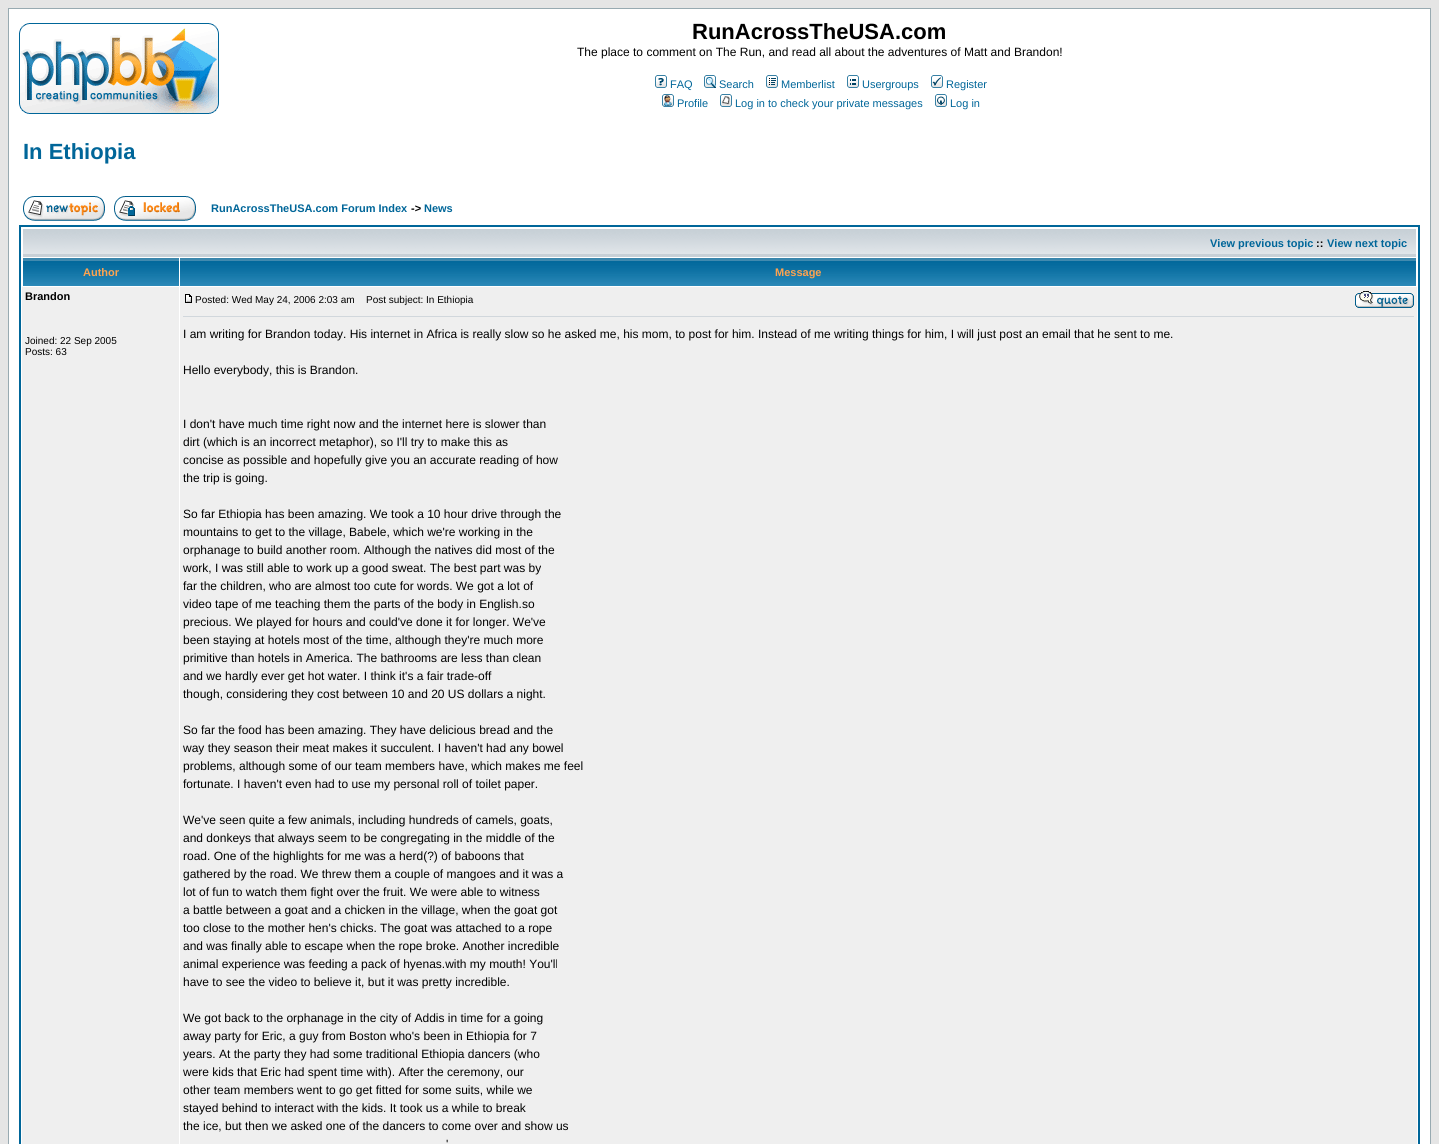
import math
import cairo

surface = cairo.ImageSurface(cairo.FORMAT_RGB24, 1439, 1144)
ctx = cairo.Context(surface)
options = cairo.FontOptions()
options.set_hint_metrics(cairo.HINT_METRICS_OFF)
options.set_hint_style(cairo.HINT_STYLE_NONE)
ctx.set_font_options(options)
ctx.set_miter_limit(4)


def set_color(code):
    ctx.set_source_rgb(*(v / 255 for v in bytes.fromhex(code[-6:])))


def draw_text(x, y, s, family, size, color, bold=False, italic=False):
    ctx.select_font_face(family, cairo.FONT_SLANT_ITALIC if italic else cairo.FONT_SLANT_NORMAL, cairo.FONT_WEIGHT_BOLD if bold else cairo.FONT_WEIGHT_NORMAL)
    ctx.set_font_size(size)
    set_color(color)
    ctx.move_to(x, y)
    ctx.show_text(s)


def fill_rect(x, y, w, h, color):
    set_color(color)
    ctx.rectangle(x, y, w, h)
    ctx.fill()


def draw_image(path, x, y, w, h):
    ctx.save()
    ctx.set_source_surface(cairo.ImageSurface.create_from_png(path), x, y)
    ctx.rectangle(x, y, w, h)
    ctx.fill()
    ctx.restore()


set_color("#e5e5e5")
ctx.paint()
set_color("#ffffff")
ctx.rectangle(8.5, 8.5, 1422, 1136)
ctx.fill_preserve()
set_color("#98aab1")
ctx.set_line_width(1)
ctx.stroke()
draw_image("assets/img1.png", 19, 23, 200, 91)
draw_text(692, 39, "RunAcrossTheUSA.com", "Liberation Sans", 22, "#000000", bold=True)
draw_text(577, 56, "The place to comment on The Run, and read all about the adventures of Matt and Brandon!", "Liberation Sans", 12, "#000000")
draw_image("assets/img2.png", 655, 75, 12, 13)
draw_text(670, 88, "FAQ", "Liberation Sans", 11, "#006699")
draw_image("assets/img3.png", 704, 75, 12, 13)
draw_text(719, 88, "Search", "Liberation Sans", 11, "#006699")
draw_image("assets/img4.png", 766, 75, 12, 13)
draw_text(781, 88, "Memberlist", "Liberation Sans", 11, "#006699")
draw_image("assets/img5.png", 847, 75, 12, 13)
draw_text(862, 88, "Usergroups", "Liberation Sans", 11, "#006699")
draw_image("assets/img6.png", 931, 75, 12, 13)
draw_text(946, 88, "Register", "Liberation Sans", 11, "#006699")
draw_image("assets/img7.png", 662, 94, 12, 13)
draw_text(677, 107, "Profile", "Liberation Sans", 11, "#006699")
draw_image("assets/img8.png", 720, 94, 12, 13)
draw_text(735, 107, "Log in to check your private messages", "Liberation Sans", 11, "#006699")
draw_image("assets/img9.png", 935, 94, 12, 13)
draw_text(950, 107, "Log in", "Liberation Sans", 11, "#006699")
draw_text(23, 159, "In Ethiopia", "Liberation Sans", 22, "#006699", bold=True)
draw_image("assets/img10.png", 23, 196, 82, 25)
draw_image("assets/img11.png", 114, 196, 82, 25)
draw_text(211, 212, "RunAcrossTheUSA.com Forum Index", "Liberation Sans", 11, "#006699", bold=True)
draw_text(411, 212, "->", "Liberation Sans", 11, "#000000", bold=True)
draw_text(424, 212, "News", "Liberation Sans", 11, "#006699", bold=True)
ctx.rectangle(20, 226, 1399, 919)
ctx.set_line_width(2)
ctx.stroke()
draw_image("assets/img12.png", 23, 229, 1393, 28)
draw_text(1210, 247, "View previous topic", "Liberation Sans", 11, "#006699", bold=True)
draw_text(1316, 247, "::", "Liberation Sans", 11, "#000000", bold=True)
draw_text(1327, 247, "View next topic", "Liberation Sans", 11, "#006699", bold=True)
draw_image("assets/img13.png", 23, 258, 156, 28)
draw_text(83, 276, "Author", "Liberation Sans", 11, "#ffa34f", bold=True)
draw_image("assets/img14.png", 180, 258, 1236, 28)
draw_text(775, 276, "Message", "Liberation Sans", 11, "#ffa34f", bold=True)
fill_rect(22, 287, 157, 857, "#efefef")
draw_text(25, 300, "Brandon", "Liberation Sans", 11, "#000000", bold=True)
draw_text(25, 344, "Joined: 22 Sep 2005", "Liberation Sans", 10, "#000000")
draw_text(25, 355, "Posts: 63", "Liberation Sans", 10, "#000000")
fill_rect(180, 287, 1237, 857, "#efefef")
draw_image("assets/img15.png", 185, 294, 7, 9)
draw_text(195, 303, "Posted: Wed May 24, 2006 2:03 am", "Liberation Sans", 10, "#000000")
draw_text(366, 303, "Post subject: In Ethiopia", "Liberation Sans", 10, "#000000")
draw_image("assets/img16.png", 1355, 291, 59, 17)
fill_rect(183, 316, 1231, 1, "#d1d7dc")
draw_text(183, 338, "I am writing for Brandon today. His internet in Africa is really slow so he asked me, his mom, to post for him. Instead of me writing things for him, I will just post an email that he sent to me.", "Liberation Sans", 12, "#000000")
draw_text(183, 374, "Hello everybody, this is Brandon.", "Liberation Sans", 12, "#000000")
draw_text(183, 428, "I don't have much time right now and the internet here is slower than", "Liberation Sans", 12, "#000000")
draw_text(183, 446, "dirt (which is an incorrect metaphor), so I'll try to make this as", "Liberation Sans", 12, "#000000")
draw_text(183, 464, "concise as possible and hopefully give you an accurate reading of how", "Liberation Sans", 12, "#000000")
draw_text(183, 482, "the trip is going.", "Liberation Sans", 12, "#000000")
draw_text(183, 518, "So far Ethiopia has been amazing. We took a 10 hour drive through the", "Liberation Sans", 12, "#000000")
draw_text(183, 536, "mountains to get to the village, Babele, which we're working in the", "Liberation Sans", 12, "#000000")
draw_text(183, 554, "orphanage to build another room. Although the natives did most of the", "Liberation Sans", 12, "#000000")
draw_text(183, 572, "work, I was still able to work up a good sweat. The best part was by", "Liberation Sans", 12, "#000000")
draw_text(183, 590, "far the children, who are almost too cute for words. We got a lot of", "Liberation Sans", 12, "#000000")
draw_text(183, 608, "video tape of me teaching them the parts of the body in English.so", "Liberation Sans", 12, "#000000")
draw_text(183, 626, "precious. We played for hours and could've done it for longer. We've", "Liberation Sans", 12, "#000000")
draw_text(183, 644, "been staying at hotels most of the time, although they're much more", "Liberation Sans", 12, "#000000")
draw_text(183, 662, "primitive than hotels in America. The bathrooms are less than clean", "Liberation Sans", 12, "#000000")
draw_text(183, 680, "and we hardly ever get hot water. I think it's a fair trade-off", "Liberation Sans", 12, "#000000")
draw_text(183, 698, "though, considering they cost between 10 and 20 US dollars a night.", "Liberation Sans", 12, "#000000")
draw_text(183, 734, "So far the food has been amazing. They have delicious bread and the", "Liberation Sans", 12, "#000000")
draw_text(183, 752, "way they season their meat makes it succulent. I haven't had any bowel", "Liberation Sans", 12, "#000000")
draw_text(183, 770, "problems, although some of our team members have, which makes me feel", "Liberation Sans", 12, "#000000")
draw_text(183, 788, "fortunate. I haven't even had to use my personal roll of toilet paper.", "Liberation Sans", 12, "#000000")
draw_text(183, 824, "We've seen quite a few animals, including hundreds of camels, goats,", "Liberation Sans", 12, "#000000")
draw_text(183, 842, "and donkeys that always seem to be congregating in the middle of the", "Liberation Sans", 12, "#000000")
draw_text(183, 860, "road. One of the highlights for me was a herd(?) of baboons that", "Liberation Sans", 12, "#000000")
draw_text(183, 878, "gathered by the road. We threw them a couple of mangoes and it was a", "Liberation Sans", 12, "#000000")
draw_text(183, 896, "lot of fun to watch them fight over the fruit. We were able to witness", "Liberation Sans", 12, "#000000")
draw_text(183, 914, "a battle between a goat and a chicken in the village, when the goat got", "Liberation Sans", 12, "#000000")
draw_text(183, 932, "too close to the mother hen's chicks. The goat was attached to a rope", "Liberation Sans", 12, "#000000")
draw_text(183, 950, "and was finally able to escape when the rope broke. Another incredible", "Liberation Sans", 12, "#000000")
draw_text(183, 968, "animal experience was feeding a pack of hyenas.with my mouth! You'll", "Liberation Sans", 12, "#000000")
draw_text(183, 986, "have to see the video to believe it, but it was pretty incredible.", "Liberation Sans", 12, "#000000")
draw_text(183, 1022, "We got back to the orphanage in the city of Addis in time for a going", "Liberation Sans", 12, "#000000")
draw_text(183, 1040, "away party for Eric, a guy from Boston who's been in Ethiopia for 7", "Liberation Sans", 12, "#000000")
draw_text(183, 1058, "years. At the party they had some traditional Ethiopia dancers (who", "Liberation Sans", 12, "#000000")
draw_text(183, 1076, "were kids that Eric had spent time with). After the ceremony, our", "Liberation Sans", 12, "#000000")
draw_text(183, 1094, "other team members went to go get fitted for some suits, while we", "Liberation Sans", 12, "#000000")
draw_text(183, 1112, "stayed behind to interact with the kids. It took us a while to break", "Liberation Sans", 12, "#000000")
draw_text(183, 1130, "the ice, but then we asked one of the dancers to come over and show us", "Liberation Sans", 12, "#000000")
draw_text(446, 1148, "'", "Liberation Sans", 12, "#000000")
surface.write_to_png("output.png")
